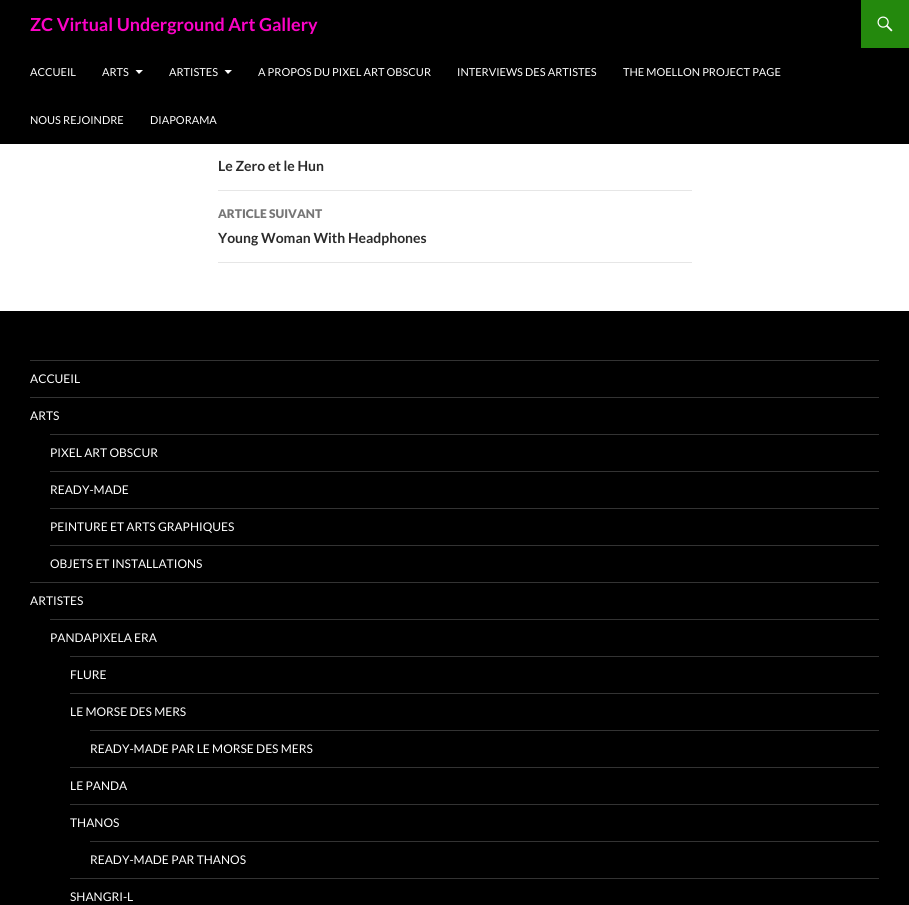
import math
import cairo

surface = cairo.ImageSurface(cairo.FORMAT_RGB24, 909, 905)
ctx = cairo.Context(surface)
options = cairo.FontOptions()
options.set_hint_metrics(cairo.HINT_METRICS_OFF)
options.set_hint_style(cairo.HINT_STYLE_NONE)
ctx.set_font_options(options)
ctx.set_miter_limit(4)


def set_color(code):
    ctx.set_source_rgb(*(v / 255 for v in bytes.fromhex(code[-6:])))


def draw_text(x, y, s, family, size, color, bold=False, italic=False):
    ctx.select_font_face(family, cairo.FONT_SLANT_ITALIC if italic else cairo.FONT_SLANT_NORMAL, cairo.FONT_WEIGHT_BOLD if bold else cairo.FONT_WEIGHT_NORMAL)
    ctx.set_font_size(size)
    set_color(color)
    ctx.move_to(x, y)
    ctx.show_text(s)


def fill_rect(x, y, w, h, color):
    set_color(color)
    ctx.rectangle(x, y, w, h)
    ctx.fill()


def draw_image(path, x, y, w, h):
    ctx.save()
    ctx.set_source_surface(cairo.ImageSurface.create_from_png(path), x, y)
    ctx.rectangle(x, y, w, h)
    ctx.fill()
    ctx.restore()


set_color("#ffffff")
ctx.paint()
fill_rect(0, 0, 909, 144, "#000000")
draw_text(30, 31, "ZC Virtual Underground Art Gallery", "Lato", 18, "#fc02c6", bold=True)
fill_rect(861, 0, 48, 48, "#24890d")
draw_image("assets/img1.png", 877, 16, 16, 16)
draw_text(30, 76, "ACCUEIL", "Lato", 11, "#ffffff")
draw_text(102, 76, "ARTS", "Lato", 11, "#ffffff")
ctx.new_path()
ctx.move_to(135.5, 70)
ctx.line_to(139, 74)
ctx.line_to(143, 70)
ctx.close_path()
ctx.fill()
draw_text(169, 76, "ARTISTES", "Lato", 11, "#ffffff")
ctx.new_path()
ctx.move_to(224.5, 70)
ctx.line_to(228, 74)
ctx.line_to(232, 70)
ctx.close_path()
ctx.fill()
draw_text(258, 76, "A PROPOS DU PIXEL ART OBSCUR", "Lato", 11, "#ffffff")
draw_text(457, 76, "INTERVIEWS DES ARTISTES", "Lato", 11, "#ffffff")
draw_text(623, 76, "THE MOELLON PROJECT PAGE", "Lato", 11, "#ffffff")
draw_text(30, 124, "NOUS REJOINDRE", "Lato", 11, "#ffffff")
draw_text(150, 124, "DIAPORAMA", "Lato", 11, "#ffffff")
fill_rect(218, 190, 474, 1, "#e6e6e6")
draw_text(218, 171, "Le Zero et le Hun", "Lato", 14, "#2b2b2b", bold=True)
fill_rect(218, 262, 474, 1, "#e6e6e6")
draw_text(218, 218, "ARTICLE SUIVANT", "Lato Black", 12, "#767676")
draw_text(218, 243, "Young Woman With Headphones", "Lato", 14, "#2b2b2b", bold=True)
fill_rect(0, 311, 909, 594, "#000000")
fill_rect(30, 360, 849, 1, "#333333")
draw_text(30, 383, "ACCUEIL", "Lato", 12, "#ffffff")
fill_rect(30, 397, 849, 1, "#333333")
draw_text(30, 420, "ARTS", "Lato", 12, "#ffffff")
fill_rect(50, 434, 829, 1, "#333333")
draw_text(50, 457, "PIXEL ART OBSCUR", "Lato", 12, "#ffffff")
fill_rect(50, 471, 829, 1, "#333333")
draw_text(50, 494, "READY-MADE", "Lato", 12, "#ffffff")
fill_rect(50, 508, 829, 1, "#333333")
draw_text(50, 531, "PEINTURE ET ARTS GRAPHIQUES", "Lato", 12, "#ffffff")
fill_rect(50, 545, 829, 1, "#333333")
draw_text(50, 568, "OBJETS ET INSTALLATIONS", "Lato", 12, "#ffffff")
fill_rect(30, 582, 849, 1, "#333333")
draw_text(30, 605, "ARTISTES", "Lato", 12, "#ffffff")
fill_rect(50, 619, 829, 1, "#333333")
draw_text(50, 642, "PANDAPIXELA ERA", "Lato", 12, "#ffffff")
fill_rect(70, 656, 809, 1, "#333333")
draw_text(70, 679, "FLURE", "Lato", 12, "#ffffff")
fill_rect(70, 693, 809, 1, "#333333")
draw_text(70, 716, "LE MORSE DES MERS", "Lato", 12, "#ffffff")
fill_rect(90, 730, 789, 1, "#333333")
draw_text(90, 753, "READY-MADE PAR LE MORSE DES MERS", "Lato", 12, "#ffffff")
fill_rect(70, 767, 809, 1, "#333333")
draw_text(70, 790, "LE PANDA", "Lato", 12, "#ffffff")
fill_rect(70, 804, 809, 1, "#333333")
draw_text(70, 827, "THANOS", "Lato", 12, "#ffffff")
fill_rect(90, 841, 789, 1, "#333333")
draw_text(90, 864, "READY-MADE PAR THANOS", "Lato", 12, "#ffffff")
fill_rect(70, 878, 809, 1, "#333333")
draw_text(70, 901, "SHANGRI-L", "Lato", 12, "#ffffff")
surface.write_to_png("output.png")
